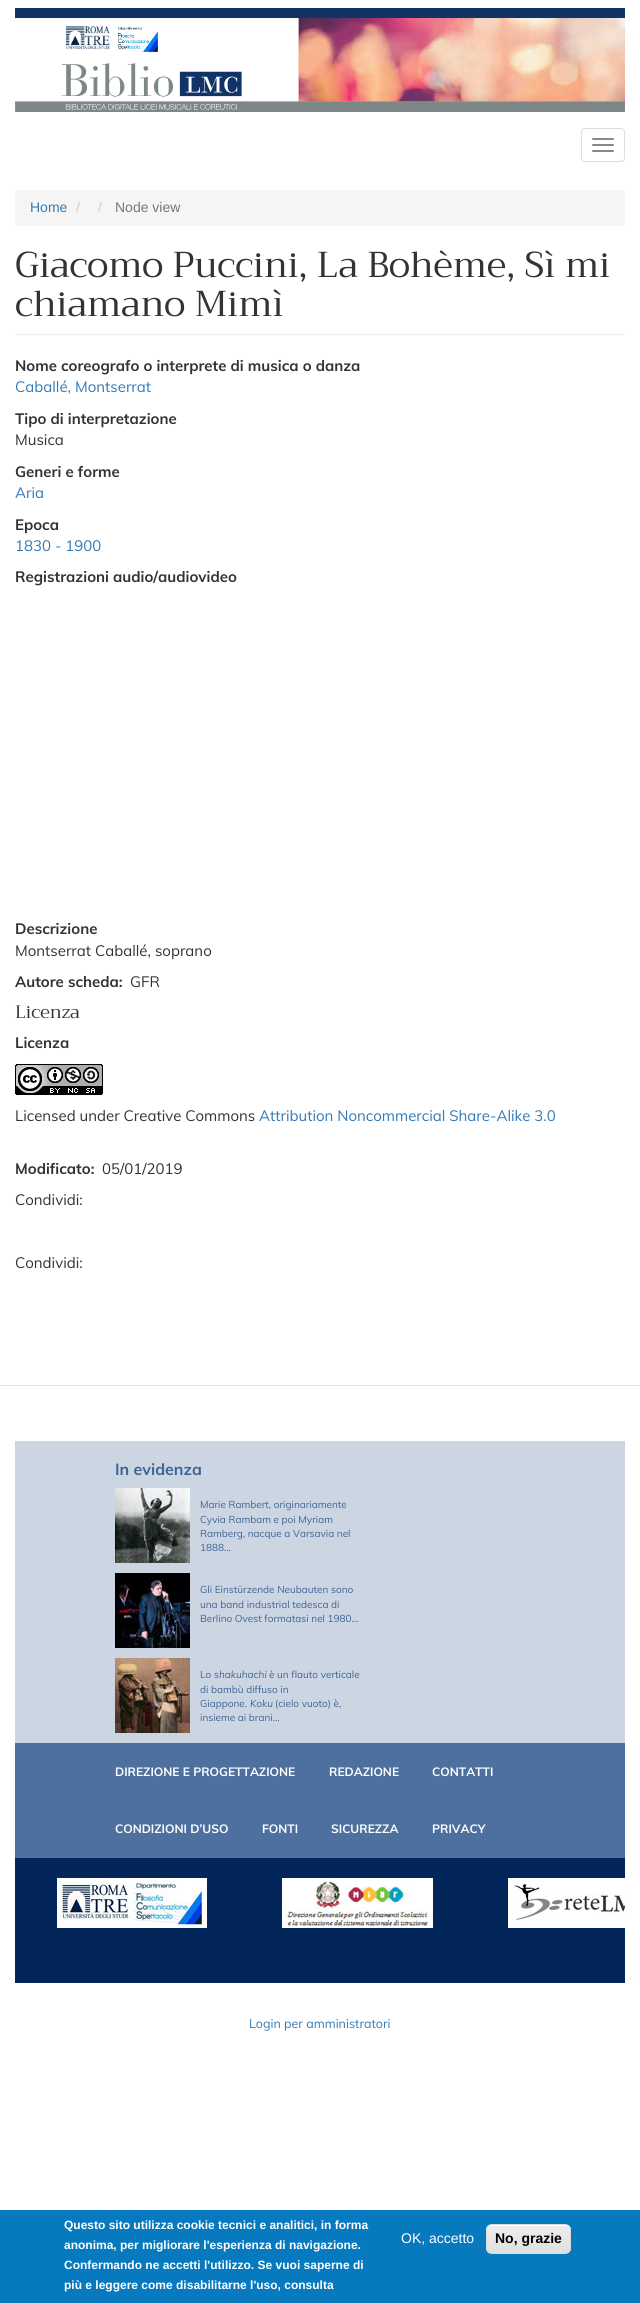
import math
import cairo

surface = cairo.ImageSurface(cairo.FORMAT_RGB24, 640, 2303)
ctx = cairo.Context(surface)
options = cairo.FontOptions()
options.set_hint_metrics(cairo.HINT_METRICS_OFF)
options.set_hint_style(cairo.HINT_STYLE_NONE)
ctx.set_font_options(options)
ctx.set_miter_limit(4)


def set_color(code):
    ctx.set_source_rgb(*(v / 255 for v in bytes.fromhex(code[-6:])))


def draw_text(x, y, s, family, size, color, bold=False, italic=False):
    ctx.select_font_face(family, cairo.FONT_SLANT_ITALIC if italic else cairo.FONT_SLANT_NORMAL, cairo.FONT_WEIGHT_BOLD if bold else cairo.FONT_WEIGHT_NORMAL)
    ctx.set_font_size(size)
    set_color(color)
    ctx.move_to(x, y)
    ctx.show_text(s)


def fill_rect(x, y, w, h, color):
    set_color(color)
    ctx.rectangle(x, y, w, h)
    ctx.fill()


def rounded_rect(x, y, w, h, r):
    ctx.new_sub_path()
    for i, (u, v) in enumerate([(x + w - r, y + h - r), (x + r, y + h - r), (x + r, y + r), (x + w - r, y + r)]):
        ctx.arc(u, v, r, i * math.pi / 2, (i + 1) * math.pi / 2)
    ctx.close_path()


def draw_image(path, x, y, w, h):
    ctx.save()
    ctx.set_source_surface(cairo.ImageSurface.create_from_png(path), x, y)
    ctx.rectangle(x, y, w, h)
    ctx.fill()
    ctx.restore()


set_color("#ffffff")
ctx.paint()
draw_image("assets/img1.png", 15, 8, 610, 104)
rounded_rect(581.5, 128.5, 43, 33, 3.5)
set_color("#dddddd")
ctx.set_line_width(1)
ctx.stroke()
set_color("#888888")
rounded_rect(592, 138, 22, 2, 1)
ctx.fill()
rounded_rect(592, 144, 22, 2, 1)
ctx.fill()
rounded_rect(592, 150, 22, 2, 1)
ctx.fill()
set_color("#f5f5f5")
rounded_rect(15, 190, 610, 36, 4)
ctx.fill()
draw_text(30, 212, "Home", "Liberation Sans", 14, "#337ab7")
draw_text(76, 212, "/", "Liberation Sans", 14, "#cccccc")
draw_text(98, 212, "/", "Liberation Sans", 14, "#cccccc")
draw_text(115, 212, "Node view", "Liberation Sans", 14, "#777777")
fill_rect(15, 334, 610, 1, "#eeeeee")
draw_text(15, 277, "Giacomo Puccini, La Bohème, Sì mi", "Trirong", 36, "#333333")
draw_text(15, 316, "chiamano Mimì", "Trirong", 36, "#333333")
draw_text(15, 371, "Nome coreografo o interprete di musica o danza", "Muli", 15, "#333333", bold=True)
draw_text(15, 392, "Caballé, Montserrat", "Muli", 15, "#337ab7")
draw_text(15, 424, "Tipo di interpretazione", "Muli", 15, "#333333", bold=True)
draw_text(15, 445, "Musica", "Muli", 15, "#333333")
draw_text(15, 477, "Generi e forme", "Muli", 15, "#333333", bold=True)
draw_text(15, 498, "Aria", "Muli", 15, "#337ab7")
draw_text(15, 530, "Epoca", "Muli", 15, "#333333", bold=True)
draw_text(15, 551, "1830 - 1900", "Muli", 15, "#337ab7")
draw_text(15, 582, "Registrazioni audio/audiovideo", "Muli", 15, "#333333", bold=True)
draw_text(15, 934, "Descrizione", "Muli", 15, "#333333", bold=True)
draw_text(15, 956, "Montserrat Caballé, soprano", "Muli", 15, "#333333")
draw_text(15, 987, "Autore scheda:", "Muli", 15, "#333333", bold=True)
draw_text(130, 987, "GFR", "Muli", 15, "#333333")
draw_text(15, 1018, "Licenza", "Trirong", 18, "#333333")
draw_text(15, 1048, "Licenza", "Muli", 15, "#333333", bold=True)
draw_image("assets/img2.png", 15, 1064, 88, 31)
draw_text(15, 1121, "Licensed under Creative Commons", "Muli", 15, "#333333")
draw_text(259, 1121, "Attribution Noncommercial Share-Alike 3.0", "Muli", 15, "#337ab7")
draw_text(15, 1174, "Modificato:", "Muli", 15, "#333333", bold=True)
draw_text(102, 1174, "05/01/2019", "Muli", 15, "#333333")
draw_text(15, 1205, "Condividi:", "Muli", 15, "#333333")
draw_text(15, 1268, "Condividi:", "Muli", 15, "#333333")
fill_rect(0, 1385, 640, 1, "#e5e5e5")
fill_rect(15, 1441, 610, 302, "#ccd6e3")
draw_text(115, 1475, "In evidenza", "Muli", 16, "#3e6496", bold=True)
draw_image("assets/img3.png", 115, 1488, 75, 75)
draw_text(200, 1508, "Marie Rambert, originariamente", "Muli", 10, "#3e6496")
draw_text(200, 1523, "Cyvia Rambam e poi Myriam", "Muli", 10, "#3e6496")
draw_text(200, 1537, "Ramberg, nacque a Varsavia nel", "Muli", 10, "#3e6496")
draw_text(200, 1551, "1888...", "Muli", 10, "#3e6496")
draw_image("assets/img4.png", 115, 1573, 75, 75)
draw_text(200, 1593, "Gli Einstürzende Neubauten sono", "Muli", 10, "#3e6496")
draw_text(200, 1608, "una band industrial tedesca di", "Muli", 10, "#3e6496")
draw_text(200, 1622, "Berlino Ovest formatasi nel 1980...", "Muli", 10, "#3e6496")
draw_image("assets/img5.png", 115, 1658, 75, 75)
draw_text(200, 1678, "Lo", "Muli", 10, "#3e6496")
draw_text(214, 1678, "shakuhachi", "Muli", 10, "#3e6496", italic=True)
draw_text(269, 1678, "è un flauto verticale", "Muli", 10, "#3e6496")
draw_text(200, 1693, "di bambù diffuso in", "Muli", 10, "#3e6496")
draw_text(200, 1707, "Giappone.", "Muli", 10, "#3e6496")
draw_text(250, 1707, "Koku", "Muli", 10, "#3e6496", italic=True)
draw_text(275, 1707, "(cielo vuoto) è,", "Muli", 10, "#3e6496")
draw_text(200, 1721, "insieme ai brani", "Muli", 10, "#3e6496")
draw_text(273, 1721, "...", "Muli", 10, "#3e6496", italic=True)
fill_rect(15, 1743, 610, 115, "#4d709e")
draw_text(115, 1776, "DIREZIONE E PROGETTAZIONE", "Muli", 12, "#ffffff", bold=True)
draw_text(329, 1776, "REDAZIONE", "Muli", 12, "#ffffff", bold=True)
draw_text(432, 1776, "CONTATTI", "Muli", 12, "#ffffff", bold=True)
draw_text(115, 1833, "CONDIZIONI D’USO", "Muli", 12, "#ffffff", bold=True)
draw_text(262, 1833, "FONTI", "Muli", 12, "#ffffff", bold=True)
draw_text(331, 1833, "SICUREZZA", "Muli", 12, "#ffffff", bold=True)
draw_text(432, 1833, "PRIVACY", "Muli", 12, "#ffffff", bold=True)
fill_rect(15, 1858, 610, 125, "#02265a")
draw_image("assets/img6.png", 57, 1878, 150, 50)
draw_image("assets/img7.png", 282, 1878, 151, 50)
draw_image("assets/img8.png", 508, 1878, 117, 50)
draw_text(249, 2028, "Login per amministratori", "Muli", 12.5, "#337ab7")
fill_rect(0, 2210, 640, 93, "#0779bf")
draw_text(64, 2229, "Questo sito utilizza cookie tecnici e analitici, in forma", "Liberation Sans", 12, "#ffffff", bold=True)
draw_text(64, 2249, "anonima, per migliorare l'esperienza di navigazione.", "Liberation Sans", 12, "#ffffff", bold=True)
draw_text(64, 2269, "Confermando ne accetti l'utilizzo. Se vuoi saperne di", "Liberation Sans", 12, "#ffffff", bold=True)
draw_text(64, 2289, "più e leggere come disabilitarne l'uso, consulta", "Liberation Sans", 12, "#ffffff", bold=True)
draw_text(401, 2243, "OK, accetto", "Liberation Sans", 14, "#ffffff")
ctx.save()
rounded_rect(486, 2224, 85, 30, 6)
ctx.clip()
gradient = cairo.LinearGradient(529, 2225, 529, 2253)
gradient.add_color_stop_rgba(0.05, 0.929, 0.929, 0.929, 1)
gradient.add_color_stop_rgba(1, 0.875, 0.875, 0.875, 1)
ctx.set_source(gradient)
ctx.rectangle(486, 2225, 85, 28)
ctx.fill()
ctx.restore()
ctx.new_path()
ctx.move_to(492, 2226)
ctx.line_to(565, 2226)
ctx.curve_to(568, 2226, 570, 2228, 570, 2231)
ctx.curve_to(570, 2222, 559, 2225, 553, 2225)
ctx.line_to(504, 2225)
ctx.curve_to(498, 2225, 487, 2222, 487, 2231)
ctx.curve_to(487, 2228, 489, 2226, 492, 2226)
ctx.close_path()
ctx.fill()
rounded_rect(486.5, 2224.5, 84, 29, 5.5)
set_color("#dcdcdc")
ctx.stroke()
draw_text(495, 2243, "No, grazie", "Liberation Sans", 14, "#000000", bold=True)
surface.write_to_png("output.png")
